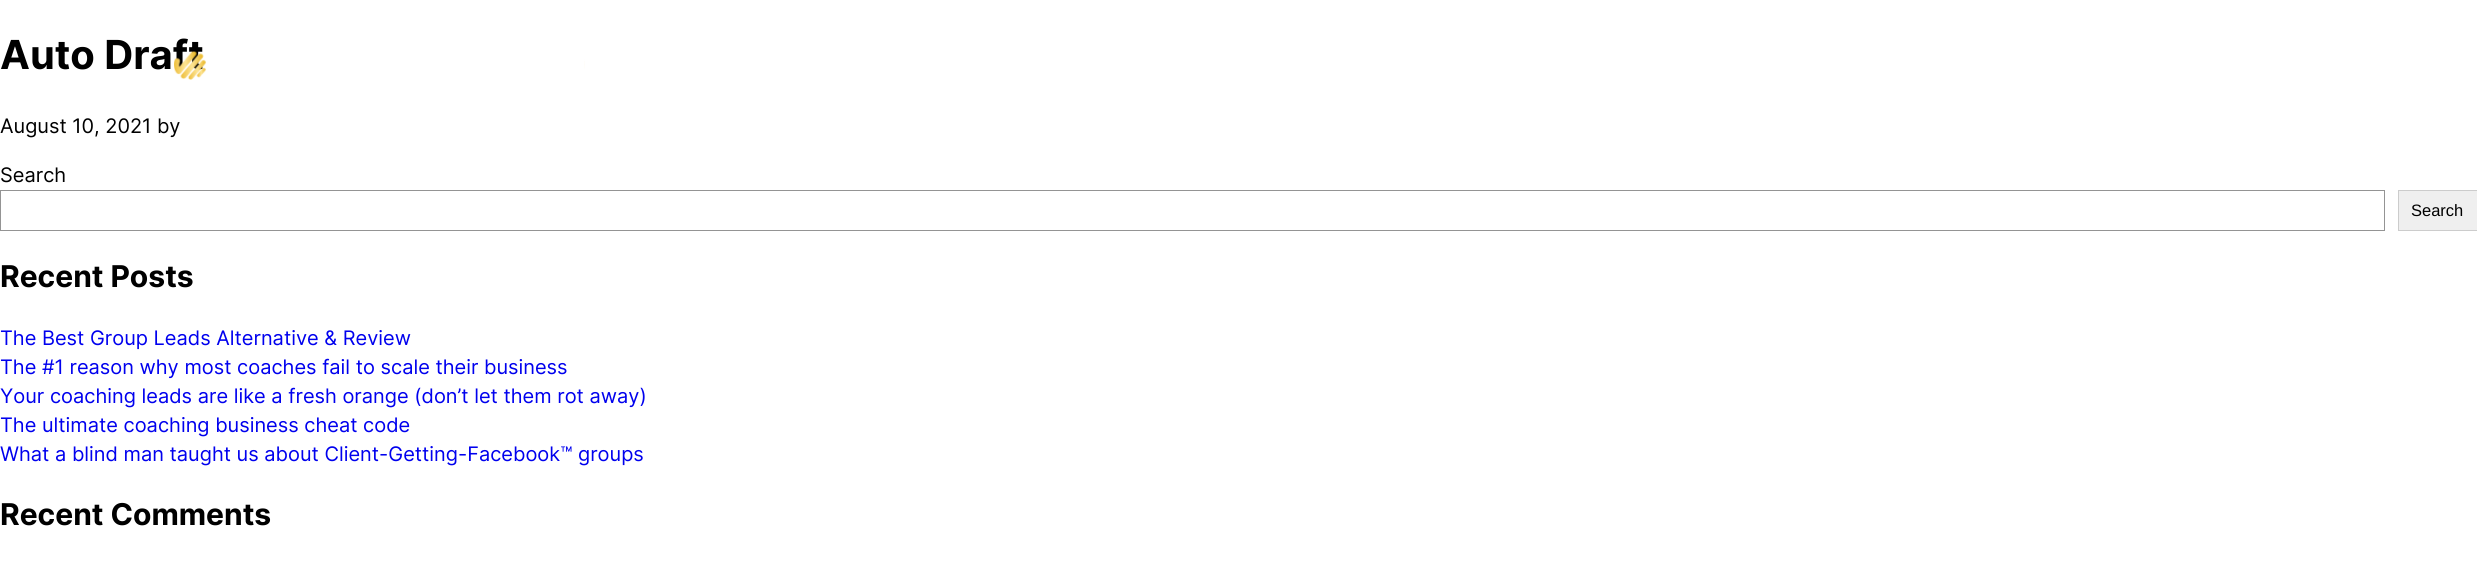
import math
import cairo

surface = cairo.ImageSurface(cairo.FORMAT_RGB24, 2477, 562)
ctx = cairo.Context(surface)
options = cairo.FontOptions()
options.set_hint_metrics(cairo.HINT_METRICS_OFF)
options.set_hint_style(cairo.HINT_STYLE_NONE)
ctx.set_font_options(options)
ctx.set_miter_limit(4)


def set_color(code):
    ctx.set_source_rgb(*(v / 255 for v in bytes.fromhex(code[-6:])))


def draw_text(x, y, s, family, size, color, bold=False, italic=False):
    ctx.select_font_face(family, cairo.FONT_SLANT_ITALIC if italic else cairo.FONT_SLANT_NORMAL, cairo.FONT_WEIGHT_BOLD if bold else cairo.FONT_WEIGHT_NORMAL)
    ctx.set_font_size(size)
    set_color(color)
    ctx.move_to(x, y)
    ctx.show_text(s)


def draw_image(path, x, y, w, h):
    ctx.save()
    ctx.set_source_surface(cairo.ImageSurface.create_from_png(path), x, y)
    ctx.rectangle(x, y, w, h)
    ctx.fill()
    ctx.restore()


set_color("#ffffff")
ctx.paint()
draw_text(0, 69, "Auto Draft", "Inter", 40, "#000000", bold=True)
draw_text(0, 133, "August 10, 2021 by", "Inter", 20, "#000000")
draw_text(0, 182, "Search", "Inter", 20, "#000000")
ctx.rectangle(0.5, 190.5, 2384, 40)
set_color("#949494")
ctx.set_line_width(1)
ctx.stroke()
set_color("#efefef")
ctx.rectangle(2398.5, 190.5, 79, 40)
ctx.fill_preserve()
set_color("#cccccc")
ctx.stroke()
draw_text(2411, 216, "Search", "Liberation Sans", 16.5, "#000000")
draw_text(0, 287, "Recent Posts", "Inter", 30, "#000000", bold=True)
draw_text(0, 345, "The Best Group Leads Alternative & Review", "Inter", 20, "#0000ee")
draw_text(0, 374, "The #1 reason why most coaches fail to scale their business", "Inter", 20, "#0000ee")
draw_text(0, 403, "Your coaching leads are like a fresh orange (don’t let them rot away)", "Inter", 20, "#0000ee")
draw_text(0, 432, "The ultimate coaching business cheat code", "Inter", 20, "#0000ee")
draw_text(0, 461, "What a blind man taught us about Client-Getting-Facebook™ groups", "Inter", 20, "#0000ee")
draw_text(0, 525, "Recent Comments", "Inter", 30, "#000000", bold=True)
draw_image("assets/img1.png", 174, 51, 411, 29)
surface.write_to_png("output.png")
